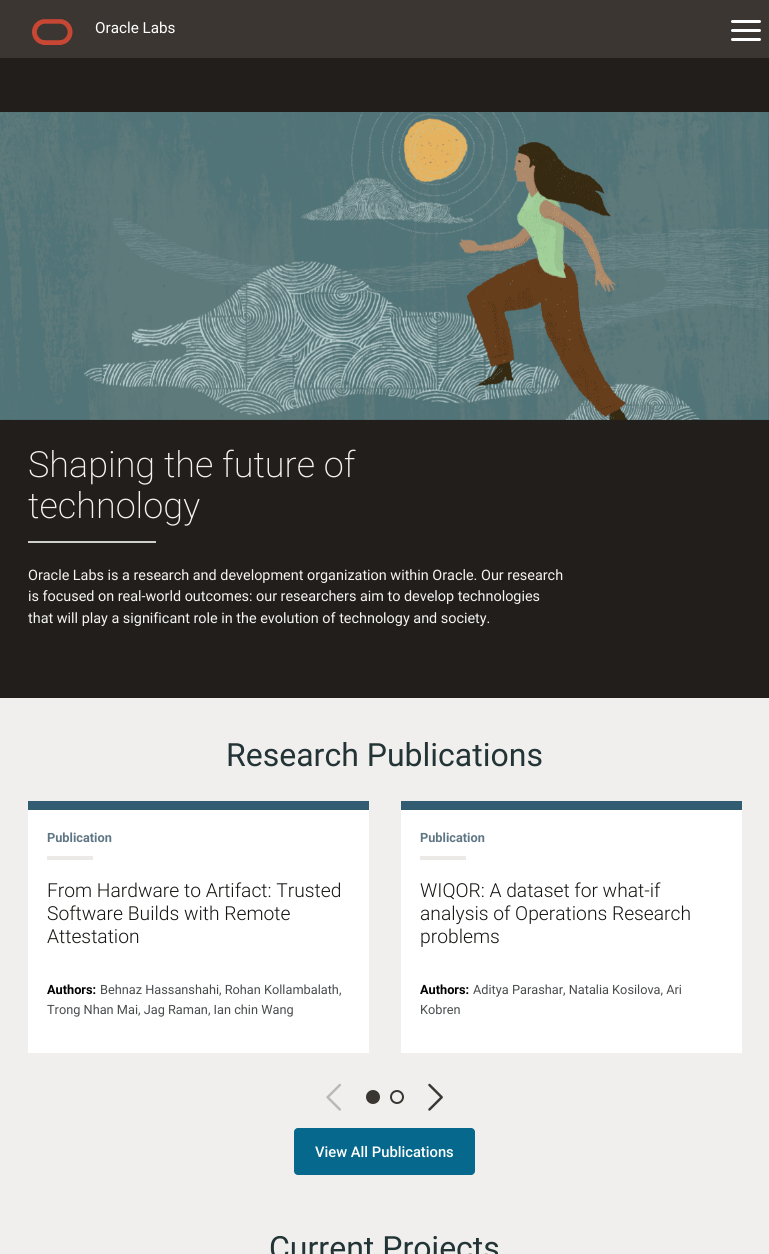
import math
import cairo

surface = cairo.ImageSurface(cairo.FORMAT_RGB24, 769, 1254)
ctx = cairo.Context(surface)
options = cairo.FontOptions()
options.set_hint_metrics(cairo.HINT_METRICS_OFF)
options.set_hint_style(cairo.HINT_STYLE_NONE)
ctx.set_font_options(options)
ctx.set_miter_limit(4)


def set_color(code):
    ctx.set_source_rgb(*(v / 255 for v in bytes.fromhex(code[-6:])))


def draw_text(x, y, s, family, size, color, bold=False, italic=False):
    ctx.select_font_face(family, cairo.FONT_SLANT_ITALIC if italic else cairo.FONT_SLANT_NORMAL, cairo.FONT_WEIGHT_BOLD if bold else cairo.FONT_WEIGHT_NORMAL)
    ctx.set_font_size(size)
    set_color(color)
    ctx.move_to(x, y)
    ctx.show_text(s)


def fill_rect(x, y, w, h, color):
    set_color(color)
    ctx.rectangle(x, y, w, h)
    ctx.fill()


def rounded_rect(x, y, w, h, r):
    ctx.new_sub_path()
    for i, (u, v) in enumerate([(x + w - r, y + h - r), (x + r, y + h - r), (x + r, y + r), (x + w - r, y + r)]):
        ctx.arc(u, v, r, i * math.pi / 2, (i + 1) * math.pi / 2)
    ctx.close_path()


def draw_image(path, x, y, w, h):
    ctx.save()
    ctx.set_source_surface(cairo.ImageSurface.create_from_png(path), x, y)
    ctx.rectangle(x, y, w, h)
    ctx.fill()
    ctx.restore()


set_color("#3b3632")
ctx.paint()
draw_image("assets/img1.png", 32, 19, 41, 26)
draw_text(95, 33, "Oracle Labs", "Roboto", 15.25, "#ffffff")
rounded_rect(731, 20, 30, 3, 1.5)
ctx.fill()
rounded_rect(731, 29, 30, 3, 1.5)
ctx.fill()
rounded_rect(731, 38, 30, 3, 1.5)
ctx.fill()
fill_rect(0, 58, 769, 640, "#211e1c")
draw_image("assets/img2.png", 0, 112, 769, 308)
draw_text(28, 477, "Shaping the future of", "Roboto ExtraLight", 36, "#f5f4f2")
draw_text(28, 518, "technology", "Roboto ExtraLight", 36, "#f5f4f2")
fill_rect(28, 541, 128, 2, "#cfcfca")
draw_text(28, 580, "Oracle Labs is a research and development organization within Oracle.", "Roboto", 14.4, "#f5f4f2")
draw_text(481, 580, "Our research", "Roboto", 14.4, "#f5f4f2")
draw_text(28, 601, "is focused on real-world outcomes: our researchers aim to develop technologies", "Roboto", 14.4, "#f5f4f2")
draw_text(28, 623, "that will play a significant role in the evolution of technology and society.", "Roboto", 14.4, "#f5f4f2")
fill_rect(0, 698, 769, 556, "#f1efed")
draw_text(226, 766, "Research Publications", "Roboto", 32, "#223435")
fill_rect(28, 810, 341, 243, "#ffffff")
fill_rect(28, 801, 341, 9, "#325c72")
draw_text(47, 842, "Publication", "Roboto", 12.75, "#5f7685", bold=True)
fill_rect(47, 856, 46, 4, "#ebeae7")
draw_text(47, 897, "From Hardware to Artifact: Trusted", "Roboto Light", 19.25, "#161513")
draw_text(47, 920, "Software Builds with Remote", "Roboto Light", 19.25, "#161513")
draw_text(47, 943, "Attestation", "Roboto Light", 19.25, "#161513")
draw_text(47, 994, "Authors:", "Roboto", 12.75, "#000000", bold=True)
draw_text(100, 994, "Behnaz Hassanshahi, Rohan Kollambalath,", "Roboto", 12.75, "#494b4d")
draw_text(47, 1014, "Trong Nhan Mai, Jag Raman, Ian chin Wang", "Roboto", 12.75, "#494b4d")
fill_rect(401, 810, 341, 243, "#ffffff")
fill_rect(401, 801, 341, 9, "#325c72")
draw_text(420, 842, "Publication", "Roboto", 12.75, "#5f7685", bold=True)
fill_rect(420, 856, 46, 4, "#ebeae7")
draw_text(420, 897, "WIQOR: A dataset for what-if", "Roboto Light", 19.25, "#161513")
draw_text(420, 920, "analysis of Operations Research", "Roboto Light", 19.25, "#161513")
draw_text(420, 943, "problems", "Roboto Light", 19.25, "#161513")
draw_text(420, 994, "Authors:", "Roboto", 12.75, "#000000", bold=True)
draw_text(473, 994, "Aditya Parashar, Natalia Kosilova, Ari", "Roboto", 12.75, "#494b4d")
draw_text(420, 1014, "Kobren", "Roboto", 12.75, "#494b4d")
draw_image("assets/img3.png", 326, 1083, 15, 28)
set_color("#3a3632")
ctx.arc(373, 1097, 6, 0, 2 * math.pi)
ctx.fill_preserve()
ctx.stroke()
ctx.arc(397, 1097, 6, 0, 2 * math.pi)
ctx.stroke()
draw_image("assets/img4.png", 428, 1083, 15, 28)
set_color("#05688c")
rounded_rect(294, 1128, 181, 47, 4)
ctx.fill()
draw_text(315, 1157, "View All Publications", "Roboto Medium", 14.75, "#ffffff")
draw_text(269, 1259, "Current Projects", "Roboto", 32, "#223435")
surface.write_to_png("output.png")
